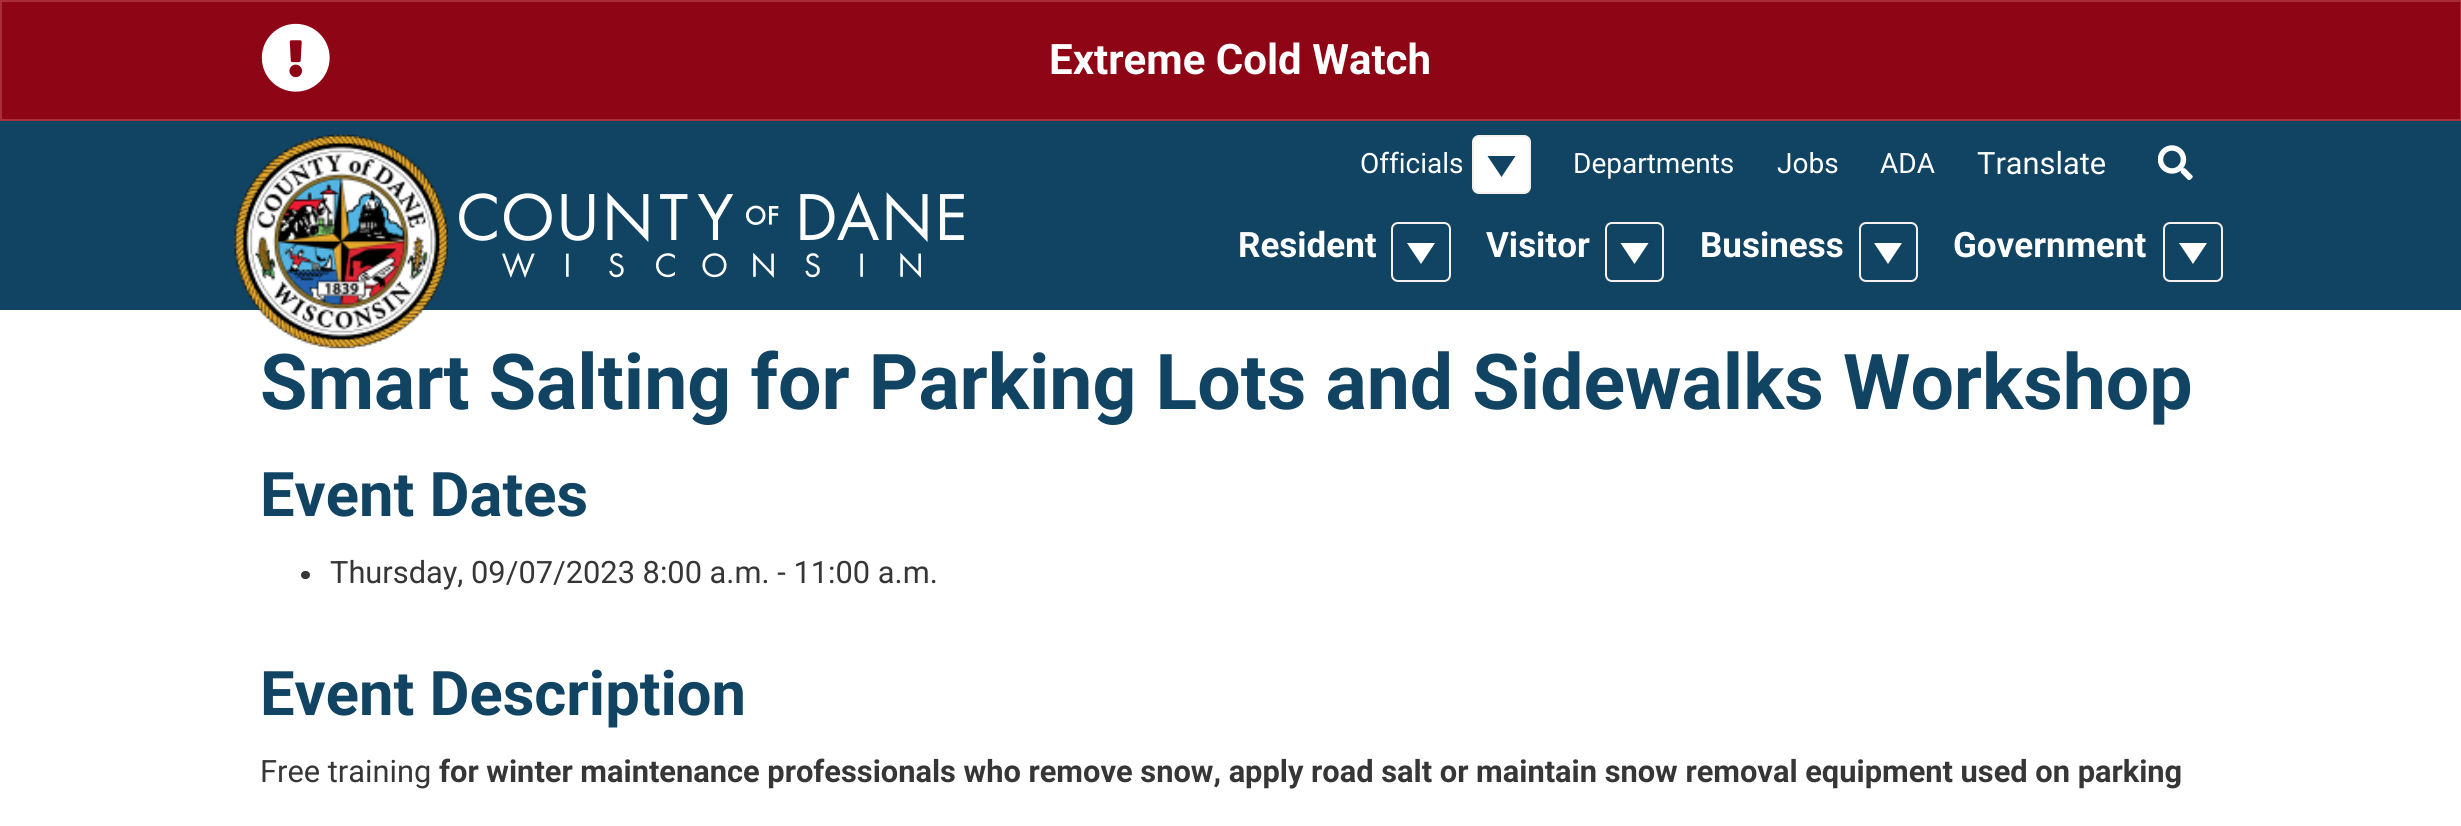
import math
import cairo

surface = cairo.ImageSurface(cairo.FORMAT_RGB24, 2461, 826)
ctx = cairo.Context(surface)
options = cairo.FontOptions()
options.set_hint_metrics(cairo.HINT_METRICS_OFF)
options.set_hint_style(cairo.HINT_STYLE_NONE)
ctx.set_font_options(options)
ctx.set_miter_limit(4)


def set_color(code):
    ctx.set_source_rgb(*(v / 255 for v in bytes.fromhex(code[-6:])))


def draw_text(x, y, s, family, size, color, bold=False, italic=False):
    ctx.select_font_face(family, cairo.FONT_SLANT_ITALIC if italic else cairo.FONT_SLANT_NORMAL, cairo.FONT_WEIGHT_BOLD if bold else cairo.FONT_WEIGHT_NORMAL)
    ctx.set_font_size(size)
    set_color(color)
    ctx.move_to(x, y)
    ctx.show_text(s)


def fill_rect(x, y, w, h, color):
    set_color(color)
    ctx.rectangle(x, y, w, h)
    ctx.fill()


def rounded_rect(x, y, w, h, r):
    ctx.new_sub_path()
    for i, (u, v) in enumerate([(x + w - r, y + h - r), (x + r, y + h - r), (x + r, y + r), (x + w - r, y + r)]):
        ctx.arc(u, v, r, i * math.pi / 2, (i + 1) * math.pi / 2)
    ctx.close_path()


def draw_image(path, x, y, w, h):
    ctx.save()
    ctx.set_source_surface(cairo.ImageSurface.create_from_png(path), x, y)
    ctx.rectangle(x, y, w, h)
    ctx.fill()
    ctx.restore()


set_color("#ffffff")
ctx.paint()
set_color("#8e0515")
ctx.rectangle(1, 1, 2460, 119)
ctx.fill_preserve()
set_color("#aa2d3c")
ctx.stroke()
draw_image("assets/img1.png", 261, 23, 69, 69)
draw_text(1049, 74, "Extreme Cold Watch", "Roboto", 42, "#ffffff", bold=True)
fill_rect(0, 121, 2461, 189, "#114362")
draw_image("assets/img2.png", 234, 134, 214, 215)
draw_image("assets/img3.png", 459, 192, 505, 86)
draw_text(1360, 173, "Officials", "Roboto", 28, "#ffffff")
rounded_rect(1473, 136, 57, 57, 6)
ctx.fill_preserve()
set_color("#f5f0ed")
ctx.stroke()
set_color("#114362")
ctx.new_path()
ctx.move_to(1487.5, 156)
ctx.line_to(1515.5, 156)
ctx.line_to(1501.5, 177)
ctx.close_path()
ctx.fill()
draw_text(1573, 173, "Departments", "Roboto", 28, "#ffffff")
draw_text(1777, 173, "Jobs", "Roboto", 28, "#ffffff")
draw_text(1880, 173, "ADA", "Roboto", 28, "#ffffff")
draw_text(1977, 174, "Translate", "Roboto", 30.8, "#ffffff")
draw_image("assets/img4.png", 2158, 145, 35, 35)
draw_text(1238, 257, "Resident", "Roboto", 35, "#ffffff", bold=True)
rounded_rect(1392, 223, 58, 58, 6)
set_color("#f5f0ed")
ctx.stroke()
set_color("#ffffff")
ctx.new_path()
ctx.move_to(1407, 243)
ctx.line_to(1435, 243)
ctx.line_to(1421, 264)
ctx.close_path()
ctx.fill()
draw_text(1486, 257, "Visitor", "Roboto", 35, "#ffffff", bold=True)
rounded_rect(1606, 223, 57, 58, 6)
set_color("#f5f0ed")
ctx.stroke()
set_color("#ffffff")
ctx.new_path()
ctx.move_to(1620.5, 243)
ctx.line_to(1648.5, 243)
ctx.line_to(1634.5, 264)
ctx.close_path()
ctx.fill()
draw_text(1700, 257, "Business", "Roboto", 35, "#ffffff", bold=True)
rounded_rect(1860, 223, 57, 58, 6)
set_color("#f5f0ed")
ctx.stroke()
set_color("#ffffff")
ctx.new_path()
ctx.move_to(1874, 243)
ctx.line_to(1902, 243)
ctx.line_to(1888, 264)
ctx.close_path()
ctx.fill()
draw_text(1953, 257, "Government", "Roboto", 35, "#ffffff", bold=True)
rounded_rect(2164, 223, 58, 58, 6)
set_color("#f5f0ed")
ctx.stroke()
set_color("#ffffff")
ctx.new_path()
ctx.move_to(2179, 243)
ctx.line_to(2207, 243)
ctx.line_to(2193, 264)
ctx.close_path()
ctx.fill()
draw_text(260, 409, "Smart Salting for Parking Lots and Sidewalks Workshop", "Roboto", 77, "#114362", bold=True)
draw_text(260, 516, "Event Dates", "Roboto", 61.5, "#114362", bold=True)
set_color("#363636")
rounded_rect(301, 571, 9, 8, 4)
ctx.fill()
draw_text(330, 583, "Thursday, 09/07/2023 8:00 a.m. - 11:00 a.m.", "Roboto", 30.8, "#363636")
draw_text(260, 715, "Event Description", "Roboto", 61.5, "#114362", bold=True)
draw_text(260, 782, "Free training", "Roboto", 30.8, "#363636")
draw_text(439, 782, "for winter maintenance professionals who remove snow, apply road salt or maintain snow removal equipment used on parking", "Roboto", 30.8, "#363636", bold=True)
surface.write_to_png("output.png")
